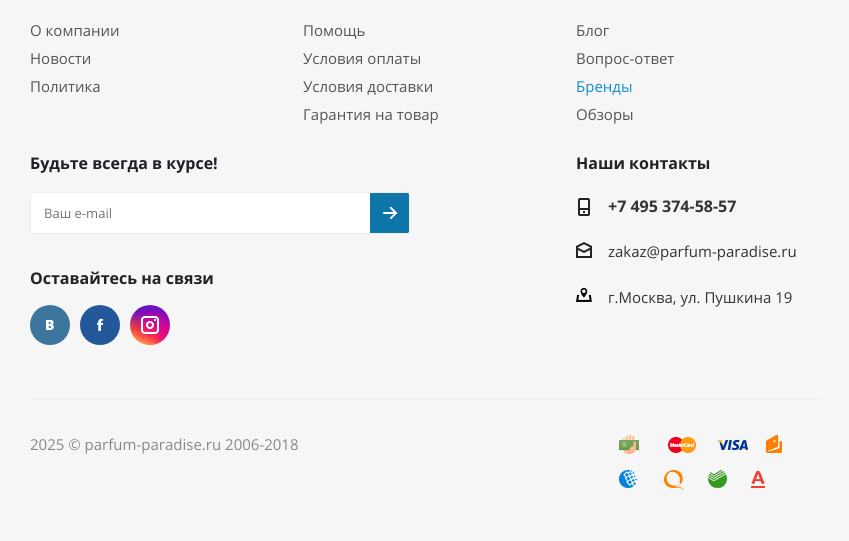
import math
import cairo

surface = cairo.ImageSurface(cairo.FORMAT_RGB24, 849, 541)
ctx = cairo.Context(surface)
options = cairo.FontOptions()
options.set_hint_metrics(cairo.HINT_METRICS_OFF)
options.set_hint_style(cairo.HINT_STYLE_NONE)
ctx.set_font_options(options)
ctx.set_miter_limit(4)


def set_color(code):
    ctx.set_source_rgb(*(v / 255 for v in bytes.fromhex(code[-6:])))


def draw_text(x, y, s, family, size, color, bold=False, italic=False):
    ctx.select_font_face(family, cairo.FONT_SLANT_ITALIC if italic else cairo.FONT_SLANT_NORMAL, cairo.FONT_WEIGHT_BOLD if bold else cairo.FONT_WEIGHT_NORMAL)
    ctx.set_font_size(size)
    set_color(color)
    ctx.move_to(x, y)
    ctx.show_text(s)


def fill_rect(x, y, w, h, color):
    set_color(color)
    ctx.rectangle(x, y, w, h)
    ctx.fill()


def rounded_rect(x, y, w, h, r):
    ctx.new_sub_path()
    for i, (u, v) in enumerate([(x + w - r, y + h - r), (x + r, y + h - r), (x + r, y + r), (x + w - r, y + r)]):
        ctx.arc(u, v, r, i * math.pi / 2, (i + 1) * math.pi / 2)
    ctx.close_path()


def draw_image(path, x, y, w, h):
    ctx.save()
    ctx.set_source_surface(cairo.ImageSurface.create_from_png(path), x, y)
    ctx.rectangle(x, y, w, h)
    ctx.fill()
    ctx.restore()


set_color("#f6f6f7")
ctx.paint()
draw_text(30, 36, "О компании", "Open Sans", 15, "#555555")
draw_text(30, 64, "Новости", "Open Sans", 15, "#555555")
draw_text(30, 92, "Политика", "Open Sans", 15, "#555555")
draw_text(303, 36, "Помощь", "Open Sans", 15, "#555555")
draw_text(303, 64, "Условия оплаты", "Open Sans", 15, "#555555")
draw_text(303, 92, "Условия доставки", "Open Sans", 15, "#555555")
draw_text(303, 120, "Гарантия на товар", "Open Sans", 15, "#555555")
draw_text(576, 36, "Блог", "Open Sans", 15, "#555555")
draw_text(576, 64, "Вопрос-ответ", "Open Sans", 15, "#555555")
draw_text(576, 92, "Бренды", "Open Sans", 15, "#138fcd")
draw_text(576, 120, "Обзоры", "Open Sans", 15, "#555555")
draw_text(30, 169, "Будьте всегда в курсе!", "Open Sans", 16, "#1d2029", bold=True)
set_color("#ffffff")
rounded_rect(30.5, 192.5, 379, 41, 1.5)
ctx.fill_preserve()
set_color("#eeeeee")
ctx.set_line_width(1)
ctx.stroke()
draw_text(44, 218, "Ваш e-mail", "Open Sans", 13, "#757575")
set_color("#0e75a9")
ctx.new_path()
ctx.move_to(370, 193)
ctx.line_to(407, 193)
ctx.curve_to(408, 193, 409, 194, 409, 195)
ctx.line_to(409, 231)
ctx.curve_to(409, 232, 408, 233, 407, 233)
ctx.line_to(370, 233)
ctx.close_path()
ctx.fill()
draw_image("assets/img1.png", 383, 206, 15, 13)
ctx.new_path()
ctx.move_to(370.5, 193.5)
ctx.line_to(407, 193.5)
ctx.curve_to(408, 193.5, 408.5, 194, 408.5, 195)
ctx.line_to(408.5, 231)
ctx.curve_to(408.5, 232, 408, 232.5, 407, 232.5)
ctx.line_to(370.5, 232.5)
ctx.close_path()
set_color("#0f78ad")
ctx.stroke()
draw_text(30, 284, "Оставайтесь на связи", "Open Sans", 16, "#222222", bold=True)
draw_image("assets/img2.png", 30, 305, 40, 40)
draw_image("assets/img3.png", 80, 305, 40, 40)
draw_image("assets/img4.png", 130, 305, 40, 40)
draw_text(576, 169, "Наши контакты", "Open Sans", 16, "#222222", bold=True)
draw_image("assets/img5.png", 578, 198, 12, 18)
draw_text(608, 212, "+7 495 374-58-57", "Open Sans", 16, "#333333", bold=True)
draw_image("assets/img6.png", 576, 242, 16, 16)
draw_text(608, 257, "zakaz@parfum-paradise.ru", "Open Sans", 15, "#333333")
draw_image("assets/img7.png", 576, 287, 16, 15)
draw_text(608, 303, "г.Москва, ул. Пушкина 19", "Open Sans", 15, "#333333")
fill_rect(30, 398, 789, 1, "#eeeeee")
draw_text(30, 450, "2025 © parfum-paradise.ru 2006-2018", "Open Sans", 15, "#888888")
draw_image("assets/img8.png", 619, 435, 20, 19)
draw_image("assets/img9.png", 668, 437, 28, 17)
draw_image("assets/img10.png", 717, 439, 31, 12)
draw_image("assets/img11.png", 766, 435, 16, 18)
draw_image("assets/img12.png", 619, 470, 18, 19)
draw_image("assets/img13.png", 664, 470, 20, 20)
draw_image("assets/img14.png", 708, 470, 19, 18)
draw_image("assets/img15.png", 751, 471, 14, 17)
surface.write_to_png("output.png")
